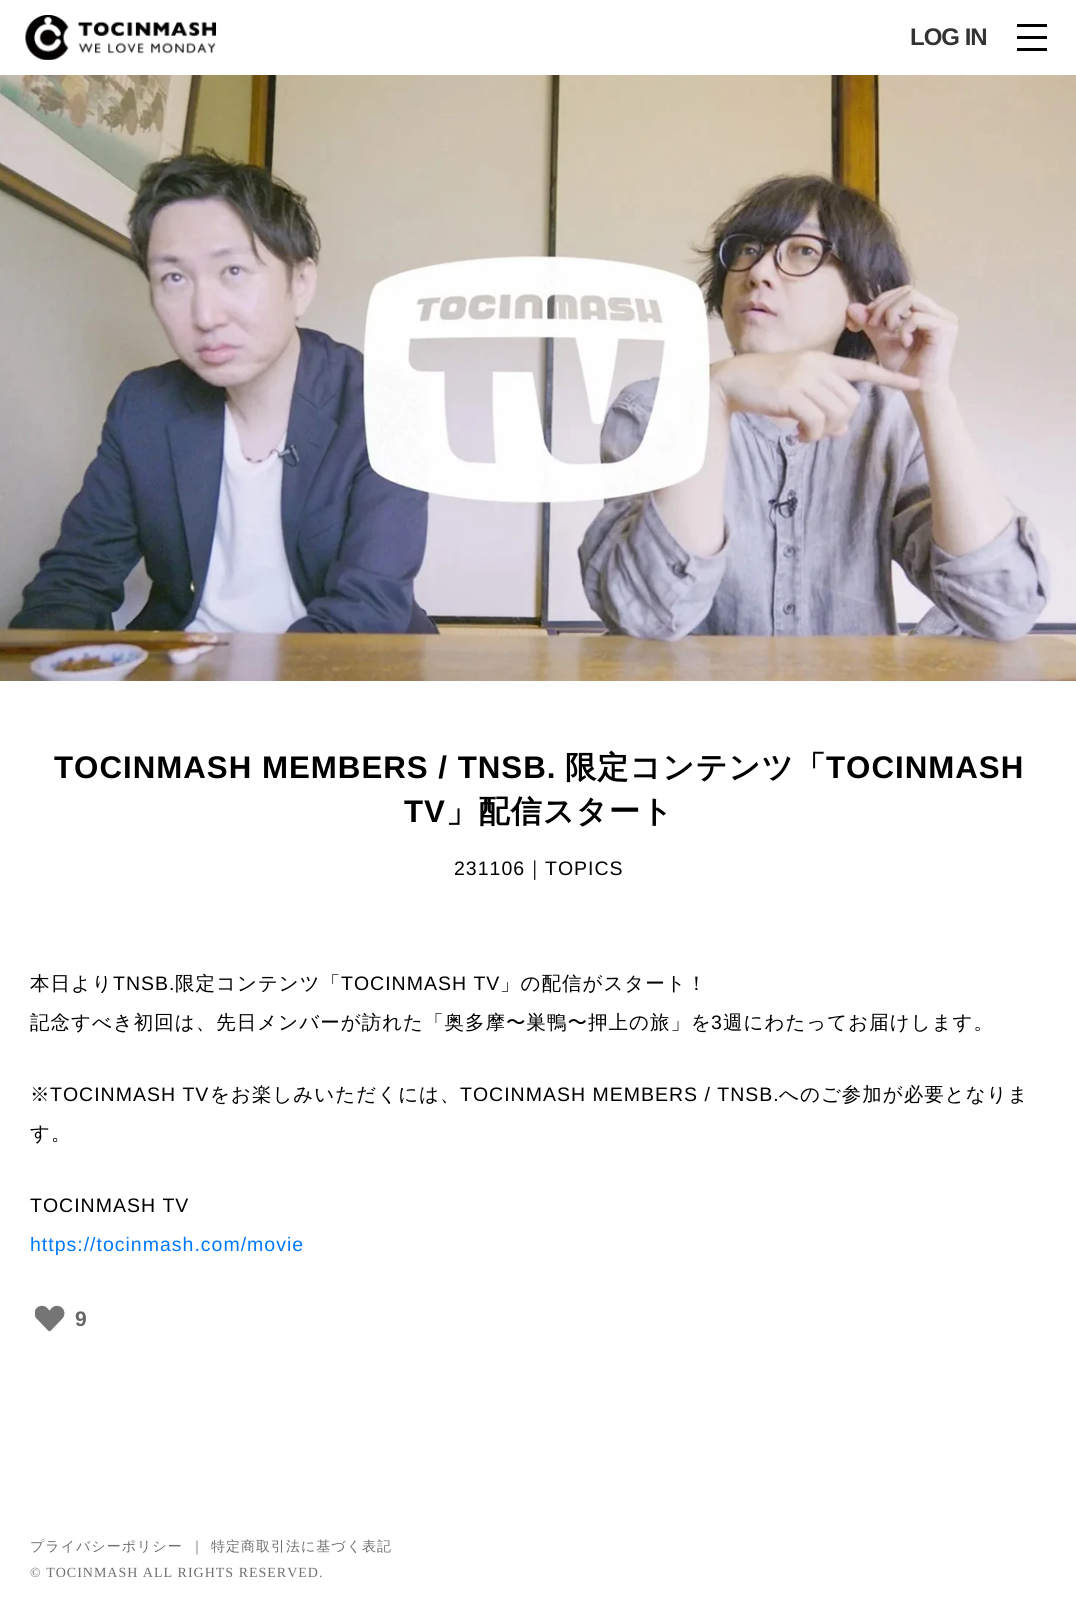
import math
import cairo

surface = cairo.ImageSurface(cairo.FORMAT_RGB24, 1076, 1600)
ctx = cairo.Context(surface)
options = cairo.FontOptions()
options.set_hint_metrics(cairo.HINT_METRICS_OFF)
options.set_hint_style(cairo.HINT_STYLE_NONE)
ctx.set_font_options(options)
ctx.set_miter_limit(4)


def set_color(code):
    ctx.set_source_rgb(*(v / 255 for v in bytes.fromhex(code[-6:])))


def draw_spaced(x, y, s, letter, word):
    ctx.move_to(x, y)
    for ch in s:
        ctx.show_text(ch)
        ctx.rel_move_to(letter + word * (ch == ' '), 0)


def fill_rect(x, y, w, h, color):
    set_color(color)
    ctx.rectangle(x, y, w, h)
    ctx.fill()


def draw_image(path, x, y, w, h):
    ctx.save()
    ctx.set_source_surface(cairo.ImageSurface.create_from_png(path), x, y)
    ctx.rectangle(x, y, w, h)
    ctx.fill()
    ctx.restore()


set_color("#ffffff")
ctx.paint()
draw_image("assets/img1.png", 25, 15, 192, 45)
ctx.select_font_face("Liberation Sans", cairo.FONT_SLANT_NORMAL, cairo.FONT_WEIGHT_BOLD)
ctx.set_font_size(24)
set_color("#333333")
draw_spaced(910, 45, "LOG IN", -1, 0)
fill_rect(1017, 36, 30, 3, "#000000")
fill_rect(1017, 24, 30, 3, "#000000")
fill_rect(1017, 48, 30, 3, "#000000")
draw_image("assets/img2.png", 0, 75, 1076, 606)
ctx.set_font_size(31.25)
draw_spaced(54, 778, "TOCINMASH MEMBERS / TNSB.", 1, 0)
ctx.select_font_face("WenQuanYi Zen Hei", cairo.FONT_SLANT_NORMAL, cairo.FONT_WEIGHT_BOLD)
draw_spaced(565, 778, "限定コンテンツ「", 1, 0)
ctx.select_font_face("Liberation Sans", cairo.FONT_SLANT_NORMAL, cairo.FONT_WEIGHT_BOLD)
draw_spaced(826, 778, "TOCINMASH", 1, 0)
draw_spaced(404, 822, "TV", 1, 0)
ctx.select_font_face("WenQuanYi Zen Hei", cairo.FONT_SLANT_NORMAL, cairo.FONT_WEIGHT_BOLD)
draw_spaced(446, 822, "」配信スタート", 1, 0)
ctx.select_font_face("Liberation Sans")
ctx.set_font_size(19.5)
draw_spaced(454, 875, "231106", 1, 0)
ctx.select_font_face("WenQuanYi Zen Hei Medium")
draw_spaced(525, 875, "｜", 1, 0)
ctx.select_font_face("Liberation Sans")
draw_spaced(545, 875, "TOPICS", 1, 0)
ctx.select_font_face("WenQuanYi Zen Hei Medium")
draw_spaced(30, 990, "本日より", 1, 0)
ctx.select_font_face("Liberation Sans")
draw_spaced(113, 990, "TNSB.", 1, 0)
ctx.select_font_face("WenQuanYi Zen Hei Medium")
draw_spaced(175, 990, "限定コンテンツ「", 1, 0)
ctx.select_font_face("Liberation Sans")
draw_spaced(341, 990, "TOCINMASH TV", 1, 0)
ctx.select_font_face("WenQuanYi Zen Hei Medium")
draw_spaced(500, 990, "」の配信がスタート！", 1, 0)
draw_spaced(30, 1029, "記念すべき初回は、先日メンバーが訪れた「奥多摩〜巣鴨〜押上の旅」を", 1, 0)
ctx.select_font_face("Liberation Sans")
draw_spaced(711, 1029, "3", 1, 0)
ctx.select_font_face("WenQuanYi Zen Hei Medium")
draw_spaced(723, 1029, "週にわたってお届けします。", 1, 0)
draw_spaced(30, 1101, "※", 1, 0)
ctx.select_font_face("Liberation Sans")
draw_spaced(50, 1101, "TOCINMASH TV", 1, 0)
ctx.select_font_face("WenQuanYi Zen Hei Medium")
draw_spaced(210, 1101, "をお楽しみいただくには、", 1, 0)
ctx.select_font_face("Liberation Sans")
draw_spaced(460, 1101, "TOCINMASH MEMBERS / TNSB.", 1, 0)
ctx.select_font_face("WenQuanYi Zen Hei Medium")
draw_spaced(779, 1101, "へのご参加が必要となりま", 1, 0)
draw_spaced(30, 1140, "す。", 1, 0)
ctx.select_font_face("Liberation Sans")
draw_spaced(30, 1212, "TOCINMASH TV", 1, 0)
set_color("#0078ff")
draw_spaced(30, 1251, "https://tocinmash.com/movie", 1, 0)
draw_image("assets/img3.png", 35, 1305, 30, 27)
ctx.select_font_face("Liberation Sans", cairo.FONT_SLANT_NORMAL, cairo.FONT_WEIGHT_BOLD)
ctx.set_font_size(21)
set_color("#666666")
draw_spaced(75, 1326, "9", 1, 0)
ctx.select_font_face("WenQuanYi Zen Hei Medium")
ctx.set_font_size(14)
set_color("#707070")
draw_spaced(30, 1551, "プライバシーポリシー", 1, 0)
draw_spaced(190, 1551, "｜", 1, 0)
draw_spaced(211, 1551, "特定商取引法に基づく表記", 1, 0)
ctx.select_font_face("Liberation Serif")
draw_spaced(30, 1577, "© TOCINMASH ALL RIGHTS RESERVED.", 1, 0)
surface.write_to_png("output.png")
